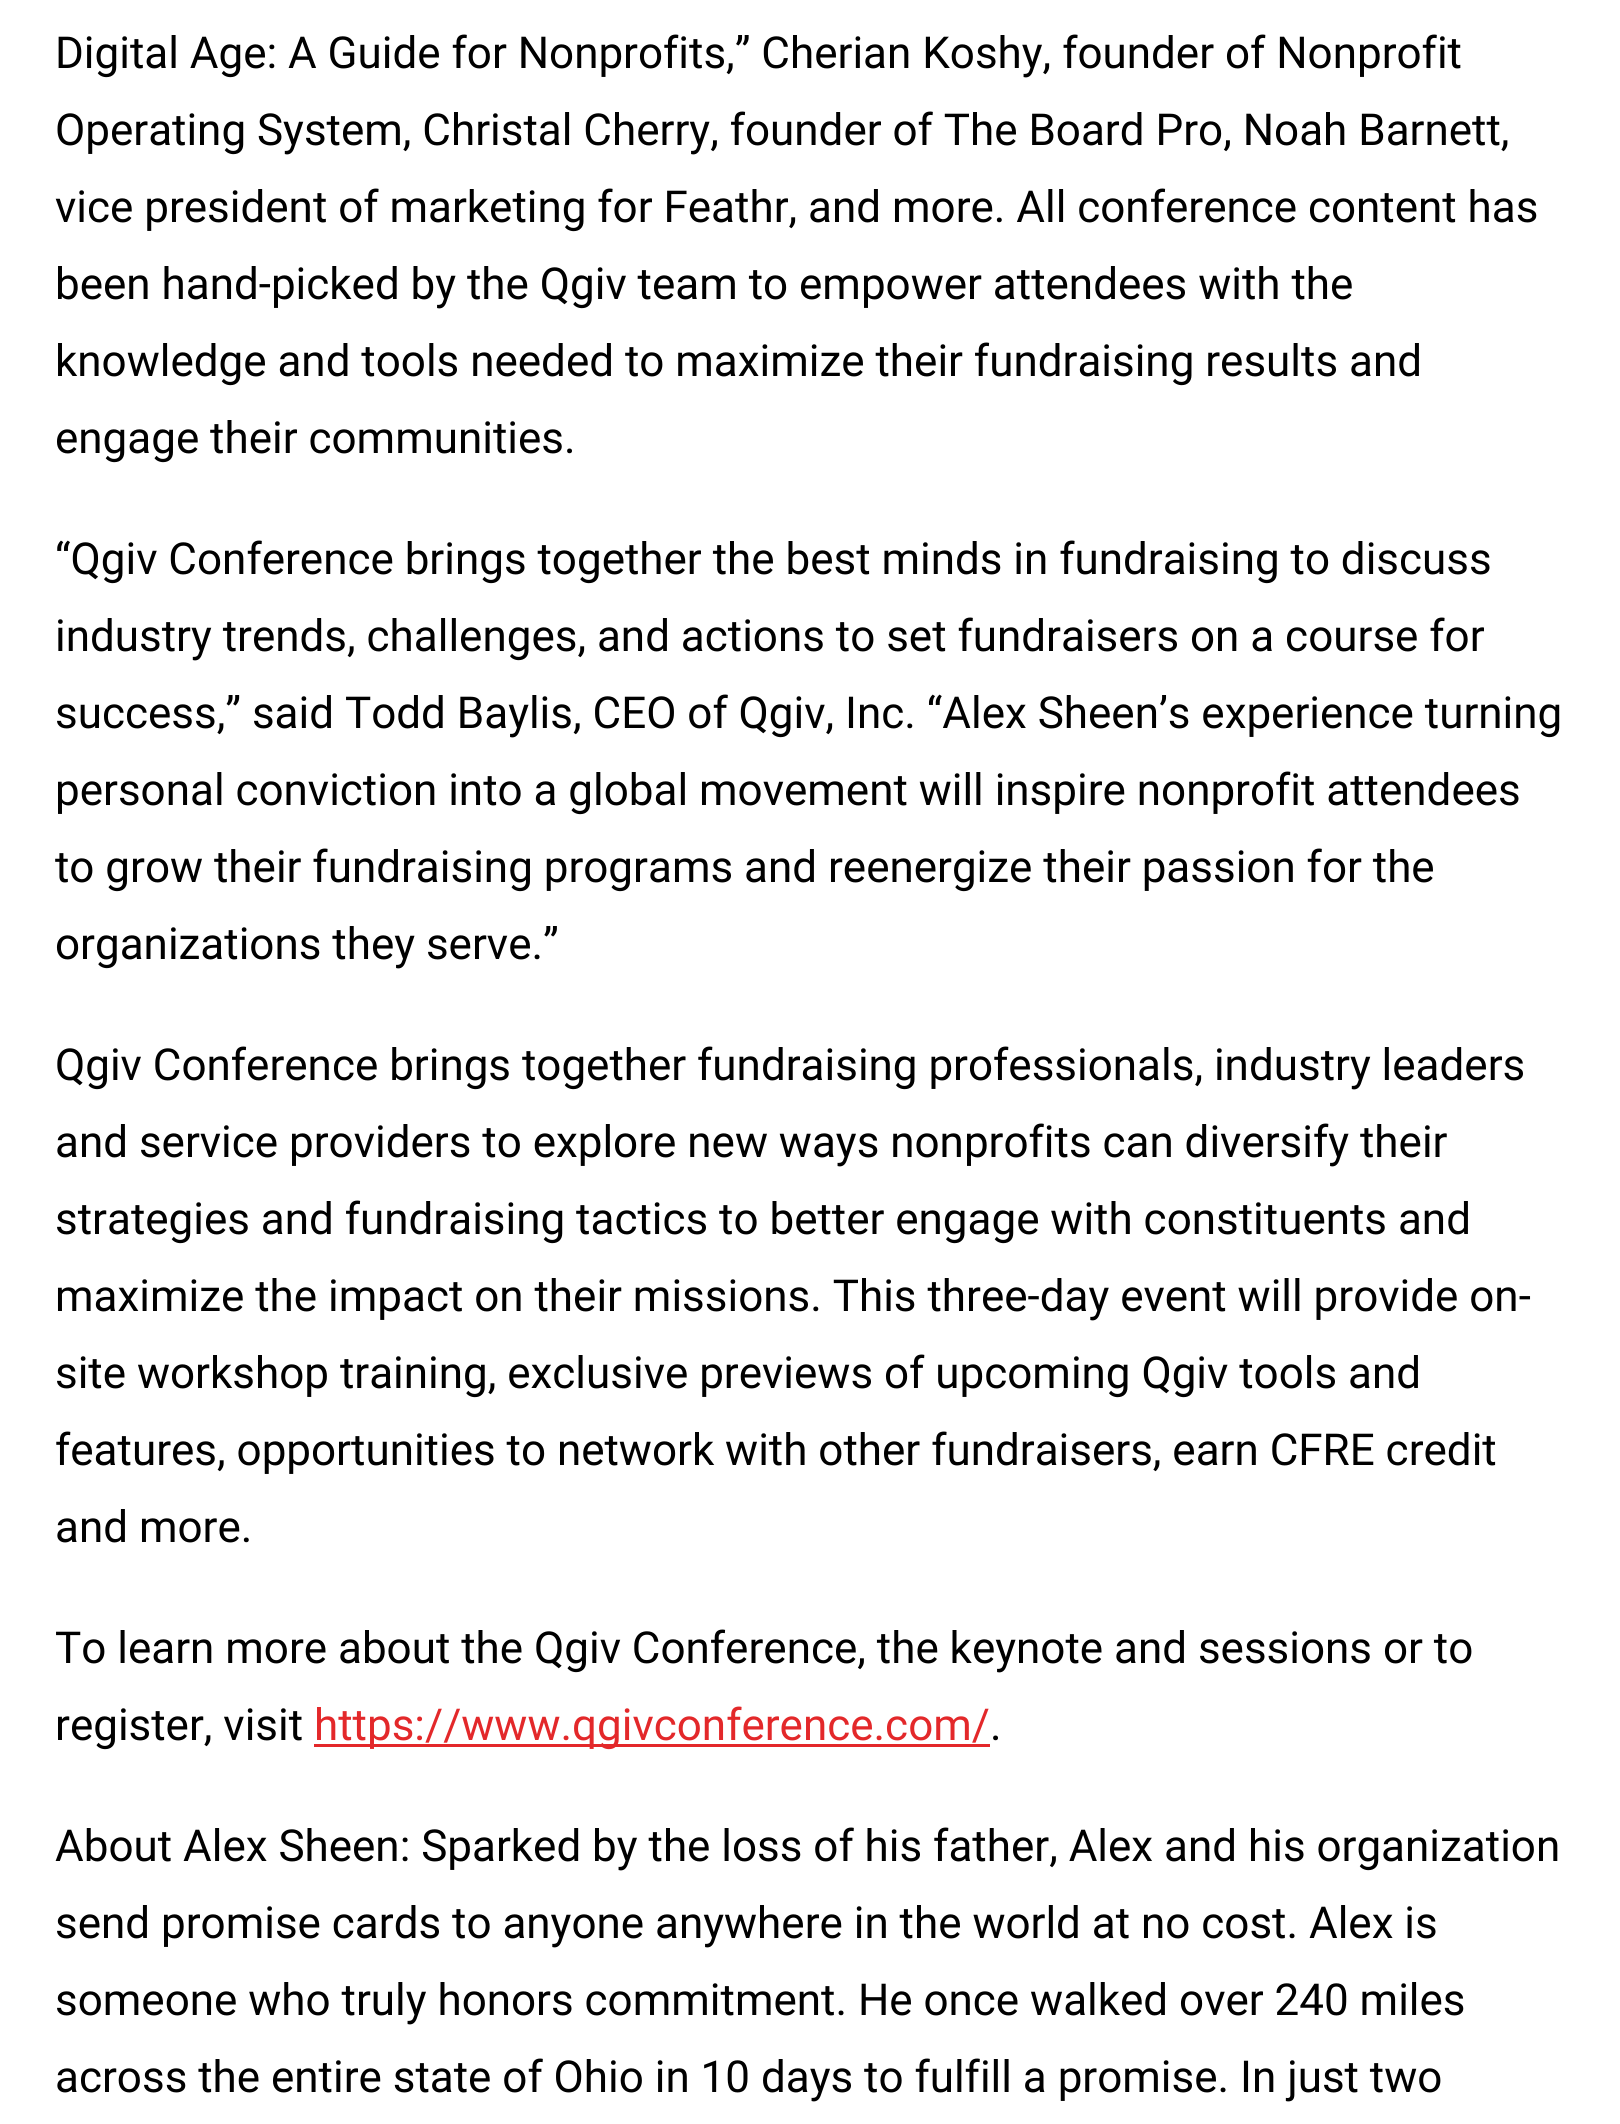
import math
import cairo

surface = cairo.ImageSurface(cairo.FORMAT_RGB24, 1620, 2124)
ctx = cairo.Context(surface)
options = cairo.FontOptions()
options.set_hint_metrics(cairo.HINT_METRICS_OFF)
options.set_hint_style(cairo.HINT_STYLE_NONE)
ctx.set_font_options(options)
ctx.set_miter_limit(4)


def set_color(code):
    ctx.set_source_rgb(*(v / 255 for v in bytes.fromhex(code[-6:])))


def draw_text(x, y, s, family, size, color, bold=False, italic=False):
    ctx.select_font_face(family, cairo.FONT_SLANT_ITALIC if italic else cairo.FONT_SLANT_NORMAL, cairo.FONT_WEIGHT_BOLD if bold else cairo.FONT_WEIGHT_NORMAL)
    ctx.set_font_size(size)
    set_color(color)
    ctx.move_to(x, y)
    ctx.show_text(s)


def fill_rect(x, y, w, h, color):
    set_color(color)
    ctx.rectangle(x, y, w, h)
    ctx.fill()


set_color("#ffffff")
ctx.paint()
draw_text(55, 68, "Digital Age: A Guide for Nonprofits,” Cherian Koshy, founder of Nonprofit", "Roboto", 44, "#000000")
draw_text(55, 145, "Operating System, Christal Cherry, founder of The Board Pro, Noah Barnett,", "Roboto", 44, "#000000")
draw_text(55, 222, "vice president of marketing for Feathr, and more. All conference content has", "Roboto", 44, "#000000")
draw_text(55, 299, "been hand-picked by the Qgiv team to empower attendees with the", "Roboto", 44, "#000000")
draw_text(55, 376, "knowledge and tools needed to maximize their fundraising results and", "Roboto", 44, "#000000")
draw_text(55, 453, "engage their communities.", "Roboto", 44, "#000000")
draw_text(55, 574, "“Qgiv Conference brings together the best minds in fundraising to discuss", "Roboto", 44, "#000000")
draw_text(55, 651, "industry trends, challenges, and actions to set fundraisers on a course for", "Roboto", 44, "#000000")
draw_text(55, 728, "success,” said Todd Baylis, CEO of Qgiv, Inc. “Alex Sheen’s experience turning", "Roboto", 44, "#000000")
draw_text(55, 805, "personal conviction into a global movement will inspire nonprofit attendees", "Roboto", 44, "#000000")
draw_text(55, 882, "to grow their fundraising programs and reenergize their passion for the", "Roboto", 44, "#000000")
draw_text(55, 959, "organizations they serve.”", "Roboto", 44, "#000000")
draw_text(55, 1080, "Qgiv Conference brings together fundraising professionals, industry leaders", "Roboto", 44, "#000000")
draw_text(55, 1157, "and service providers to explore new ways nonprofits can diversify their", "Roboto", 44, "#000000")
draw_text(55, 1234, "strategies and fundraising tactics to better engage with constituents and", "Roboto", 44, "#000000")
draw_text(55, 1311, "maximize the impact on their missions. This three-day event will provide on-", "Roboto", 44, "#000000")
draw_text(55, 1388, "site workshop training, exclusive previews of upcoming Qgiv tools and", "Roboto", 44, "#000000")
draw_text(55, 1465, "features, opportunities to network with other fundraisers, earn CFRE credit", "Roboto", 44, "#000000")
draw_text(55, 1542, "and more.", "Roboto", 44, "#000000")
draw_text(55, 1663, "To learn more about the Qgiv Conference, the keynote and sessions or to", "Roboto", 44, "#000000")
draw_text(55, 1740, "register, visit", "Roboto", 44, "#000000")
fill_rect(314, 1744, 676, 3, "#e3282a")
draw_text(314, 1740, "https://www.qgivconference.com/", "Roboto", 44, "#e3282a")
draw_text(990, 1740, ".", "Roboto", 44, "#000000")
draw_text(55, 1861, "About Alex Sheen: Sparked by the loss of his father, Alex and his organization", "Roboto", 44, "#000000")
draw_text(55, 1938, "send promise cards to anyone anywhere in the world at no cost. Alex is", "Roboto", 44, "#000000")
draw_text(55, 2015, "someone who truly honors commitment. He once walked over 240 miles", "Roboto", 44, "#000000")
draw_text(55, 2092, "across the entire state of Ohio in 10 days to fulfill a promise. In just two", "Roboto", 44, "#000000")
surface.write_to_png("output.png")
